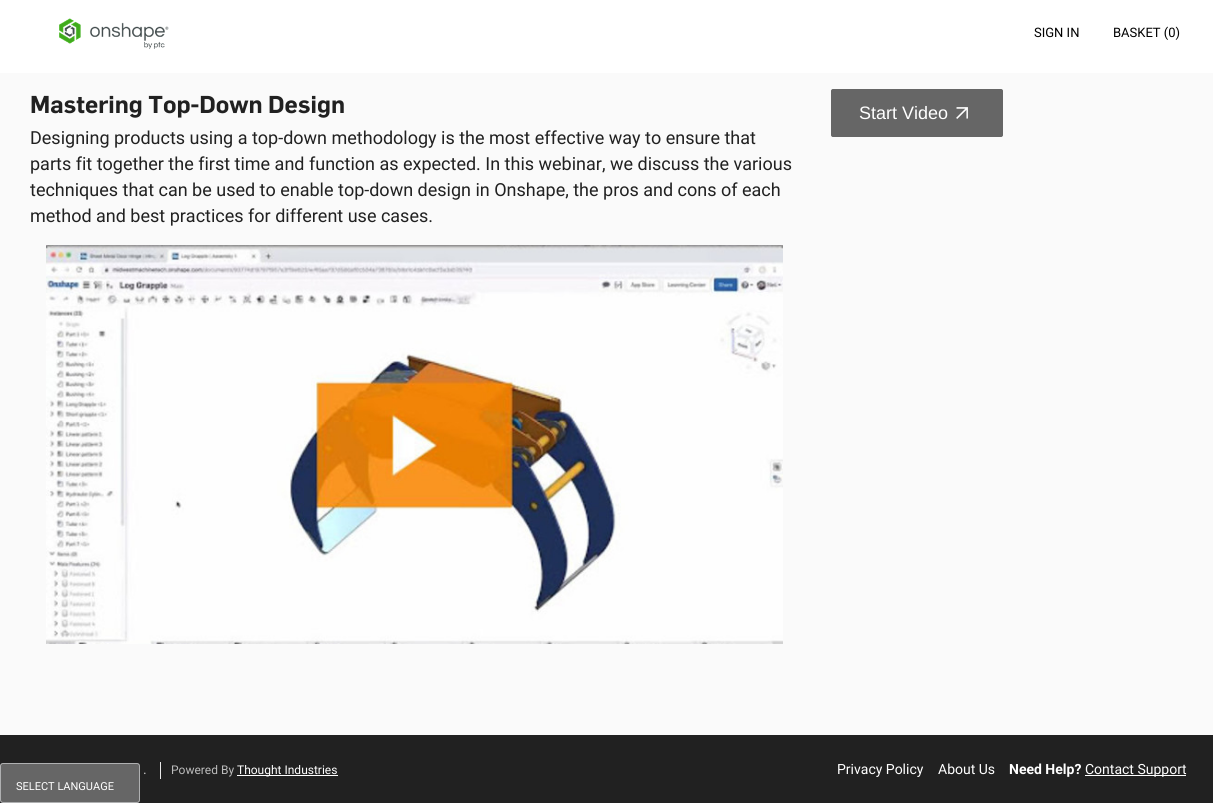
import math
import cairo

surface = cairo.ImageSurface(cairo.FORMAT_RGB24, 1213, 803)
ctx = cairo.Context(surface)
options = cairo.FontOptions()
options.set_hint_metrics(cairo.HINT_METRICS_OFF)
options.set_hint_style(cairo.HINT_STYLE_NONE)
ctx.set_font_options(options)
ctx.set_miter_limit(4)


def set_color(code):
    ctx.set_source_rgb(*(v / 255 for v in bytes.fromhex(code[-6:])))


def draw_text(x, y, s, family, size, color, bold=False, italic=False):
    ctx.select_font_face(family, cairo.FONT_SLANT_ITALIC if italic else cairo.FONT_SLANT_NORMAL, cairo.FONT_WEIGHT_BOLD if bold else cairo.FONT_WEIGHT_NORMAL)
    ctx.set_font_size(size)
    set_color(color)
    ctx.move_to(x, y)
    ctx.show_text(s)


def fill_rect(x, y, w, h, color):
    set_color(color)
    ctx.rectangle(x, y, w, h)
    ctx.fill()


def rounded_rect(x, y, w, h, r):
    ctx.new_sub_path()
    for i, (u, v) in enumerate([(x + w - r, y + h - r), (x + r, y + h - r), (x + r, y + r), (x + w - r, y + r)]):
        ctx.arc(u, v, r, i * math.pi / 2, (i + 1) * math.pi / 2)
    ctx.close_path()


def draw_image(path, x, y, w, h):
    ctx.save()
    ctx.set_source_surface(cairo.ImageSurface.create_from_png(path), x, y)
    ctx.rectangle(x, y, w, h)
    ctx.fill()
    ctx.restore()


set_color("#fafafa")
ctx.paint()
fill_rect(0, 0, 1213, 73, "#ffffff")
draw_image("assets/img1.png", 59, 18, 110, 31)
draw_text(1034, 37, "SIGN IN", "Roboto", 13, "#000000")
draw_text(1113, 37, "BASKET (0)", "Roboto", 13, "#000000")
draw_text(30, 113, "Mastering Top-Down Design", "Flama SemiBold", 24, "#212121")
draw_text(30, 144, "Designing products using a top-down methodology is the most effective way to ensure that", "Roboto", 18, "#212121")
draw_text(30, 170, "parts fit together the first time and function as expected. In this webinar, we discuss the various", "Roboto", 18, "#212121")
draw_text(30, 196, "techniques that can be used to enable top-down design in Onshape, the pros and cons of each", "Roboto", 18, "#212121")
draw_text(30, 222, "method and best practices for different use cases.", "Roboto", 18, "#212121")
draw_image("assets/img2.png", 46, 245, 737, 399)
set_color("#666666")
rounded_rect(831.5, 89.5, 171, 47, 1.5)
ctx.fill_preserve()
ctx.set_line_width(1)
ctx.stroke()
draw_text(859, 119, "Start Video", "Liberation Sans", 18, "#ffffff")
draw_image("assets/img3.png", 956, 107, 12, 12)
fill_rect(0, 735, 1213, 68, "#212121")
draw_text(143, 774, ".", "Roboto", 14, "#bcbcbc")
fill_rect(160, 762, 1, 17, "#e9e9e9")
draw_text(171, 774, "Powered By", "Roboto", 12, "#bcbcbc")
fill_rect(237, 775, 101, 1, "#ffffff")
draw_text(237, 774, "Thought Industries", "Roboto", 12, "#ffffff")
draw_text(837, 774, "Privacy Policy", "Roboto", 14, "#ffffff")
draw_text(938, 774, "About Us", "Roboto", 14, "#ffffff")
draw_text(1009, 774, "Need Help?", "Roboto", 14, "#ffffff", bold=True)
fill_rect(1085, 775, 101, 1, "#ffffff")
draw_text(1085, 774, "Contact Support", "Roboto", 14, "#ffffff")
set_color("#666666")
rounded_rect(0, 763, 140, 40, 3)
ctx.fill()
rounded_rect(0.5, 763.5, 139, 39, 2.5)
ctx.set_source_rgba(0.976, 0.98, 0.988, 0.5)
ctx.stroke()
draw_text(16, 790, "SELECT LANGUAGE", "Roboto", 11, "#ffffff")
surface.write_to_png("output.png")
